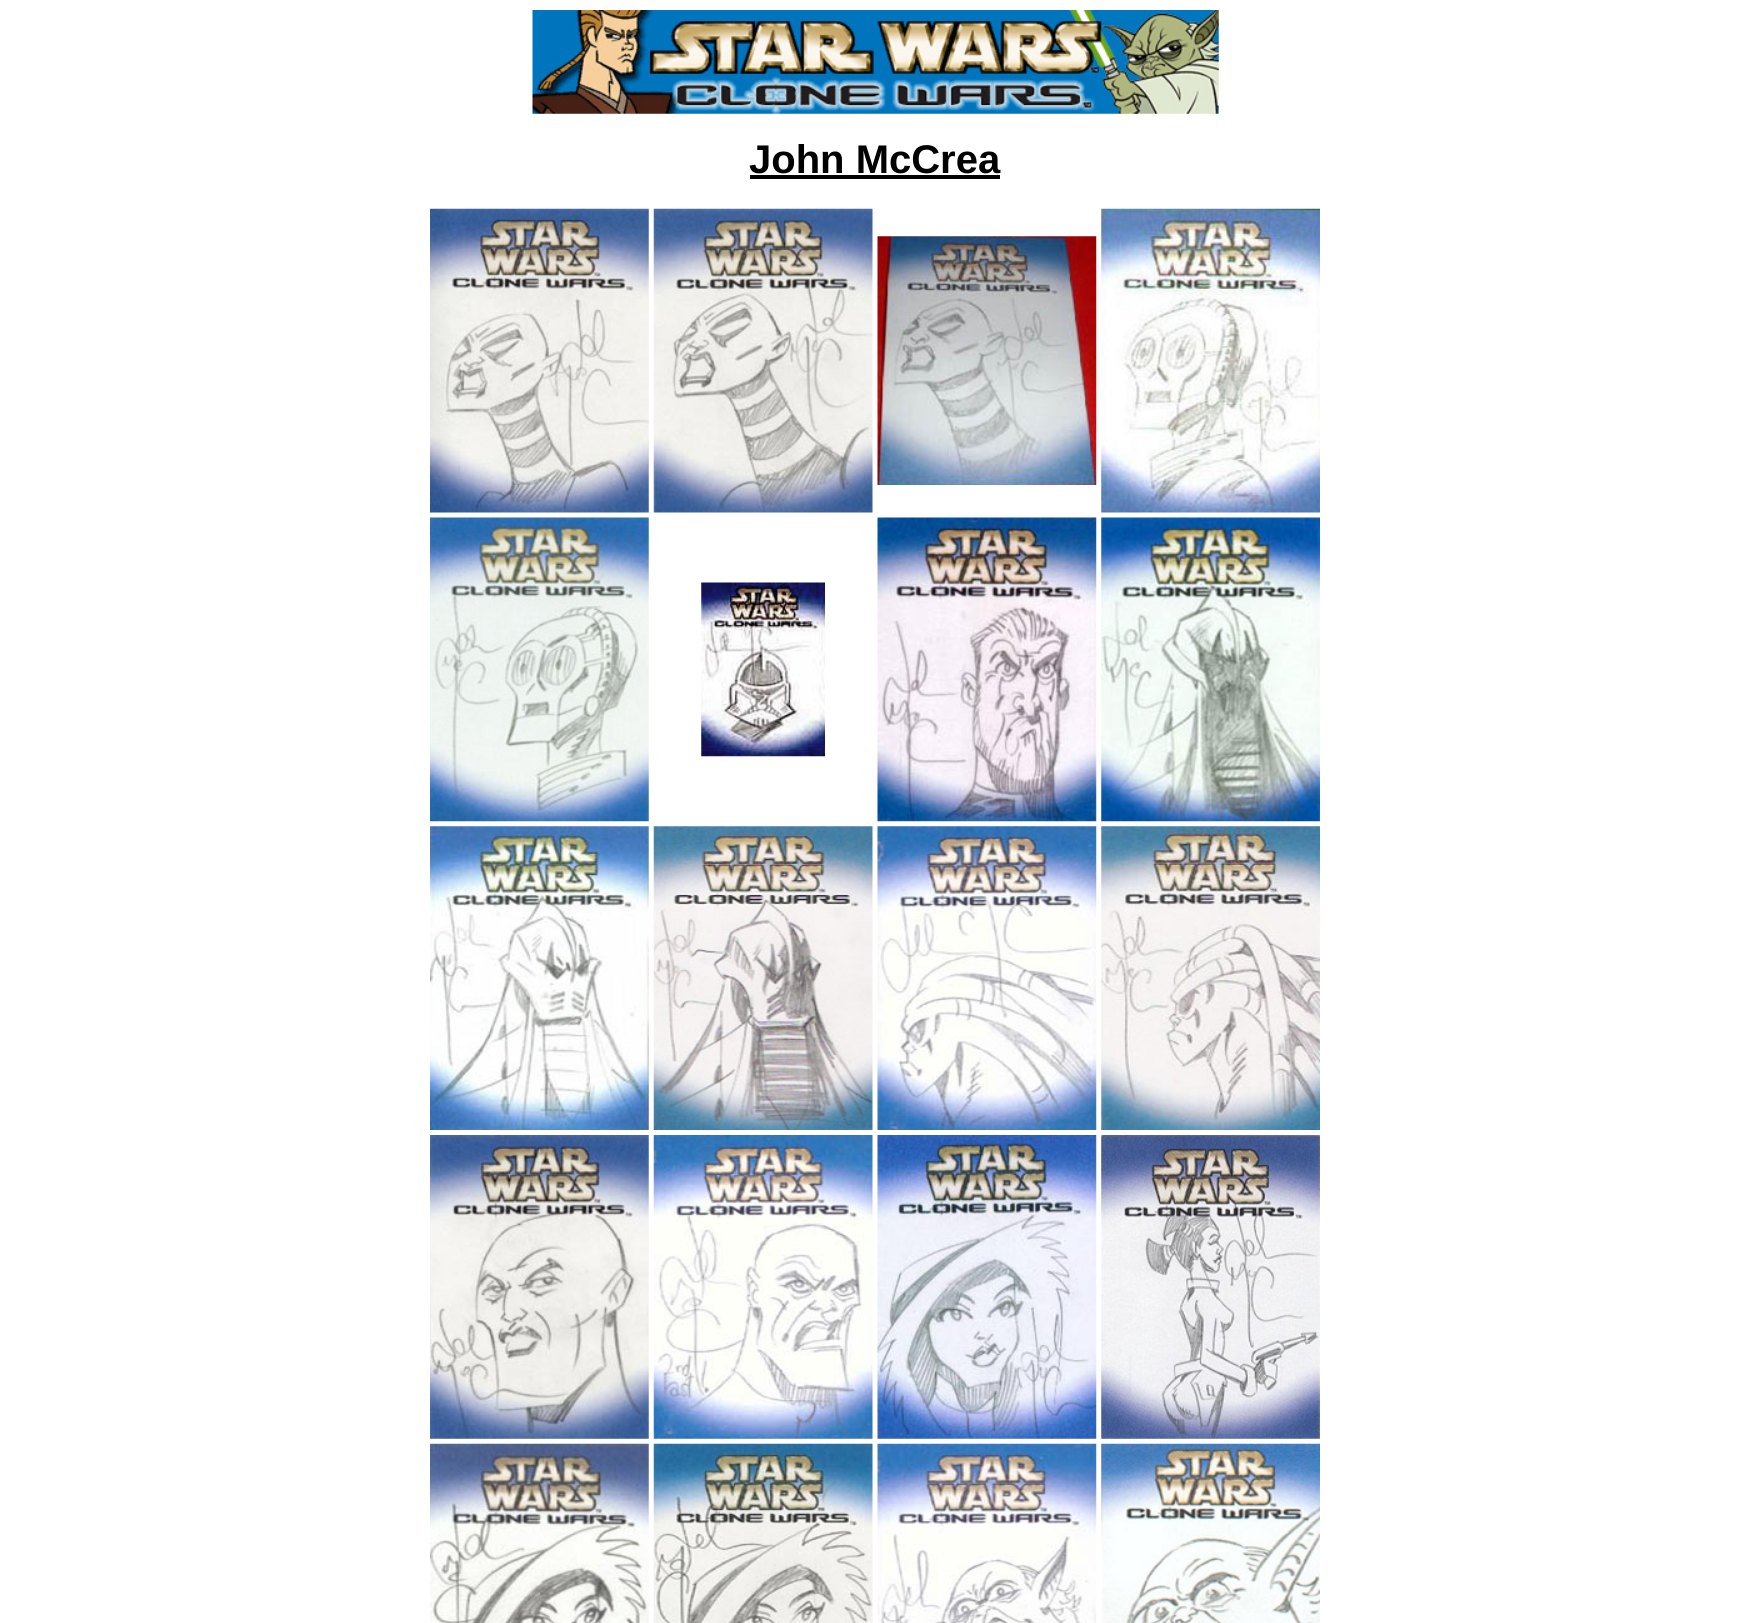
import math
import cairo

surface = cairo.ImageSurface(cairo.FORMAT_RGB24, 1749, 1623)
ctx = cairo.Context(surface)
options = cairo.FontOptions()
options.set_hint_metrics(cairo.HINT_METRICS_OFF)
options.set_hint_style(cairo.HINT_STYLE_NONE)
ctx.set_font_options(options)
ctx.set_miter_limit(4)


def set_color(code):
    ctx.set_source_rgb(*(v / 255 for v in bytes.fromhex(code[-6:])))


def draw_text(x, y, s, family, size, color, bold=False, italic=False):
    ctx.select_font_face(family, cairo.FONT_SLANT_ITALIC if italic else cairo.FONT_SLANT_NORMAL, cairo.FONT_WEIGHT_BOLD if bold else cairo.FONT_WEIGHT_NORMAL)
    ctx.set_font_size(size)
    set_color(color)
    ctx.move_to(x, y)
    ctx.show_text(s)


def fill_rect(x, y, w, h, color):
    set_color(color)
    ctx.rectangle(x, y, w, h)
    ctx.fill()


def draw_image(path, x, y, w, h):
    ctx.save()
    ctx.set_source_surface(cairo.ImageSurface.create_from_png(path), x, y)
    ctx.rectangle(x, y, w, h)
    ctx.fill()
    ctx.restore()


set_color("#ffffff")
ctx.paint()
draw_image("assets/img1.png", 532, 10, 687, 104)
draw_text(749, 173, "John McCrea", "Liberation Sans", 40, "#000000", bold=True)
fill_rect(750, 175, 250, 4, "#000000")
draw_image("assets/img2.png", 430, 208, 219, 305)
draw_image("assets/img3.png", 653, 208, 220, 305)
draw_image("assets/img4.png", 877, 236, 220, 249)
draw_image("assets/img5.png", 1101, 208, 219, 305)
draw_image("assets/img6.png", 430, 517, 219, 305)
draw_image("assets/img7.png", 701, 582, 124, 175)
draw_image("assets/img8.png", 877, 517, 220, 305)
draw_image("assets/img9.png", 1101, 517, 219, 305)
draw_image("assets/img10.png", 430, 826, 219, 304)
draw_image("assets/img11.png", 653, 826, 220, 304)
draw_image("assets/img12.png", 877, 826, 220, 304)
draw_image("assets/img13.png", 1101, 826, 219, 304)
draw_image("assets/img14.png", 430, 1135, 219, 304)
draw_image("assets/img15.png", 653, 1135, 220, 304)
draw_image("assets/img16.png", 877, 1135, 220, 304)
draw_image("assets/img17.png", 1101, 1135, 219, 304)
draw_image("assets/img18.png", 430, 1443, 219, 180)
draw_image("assets/img19.png", 653, 1443, 220, 180)
draw_image("assets/img20.png", 877, 1443, 220, 180)
draw_image("assets/img21.png", 1101, 1443, 219, 180)
surface.write_to_png("output.png")
